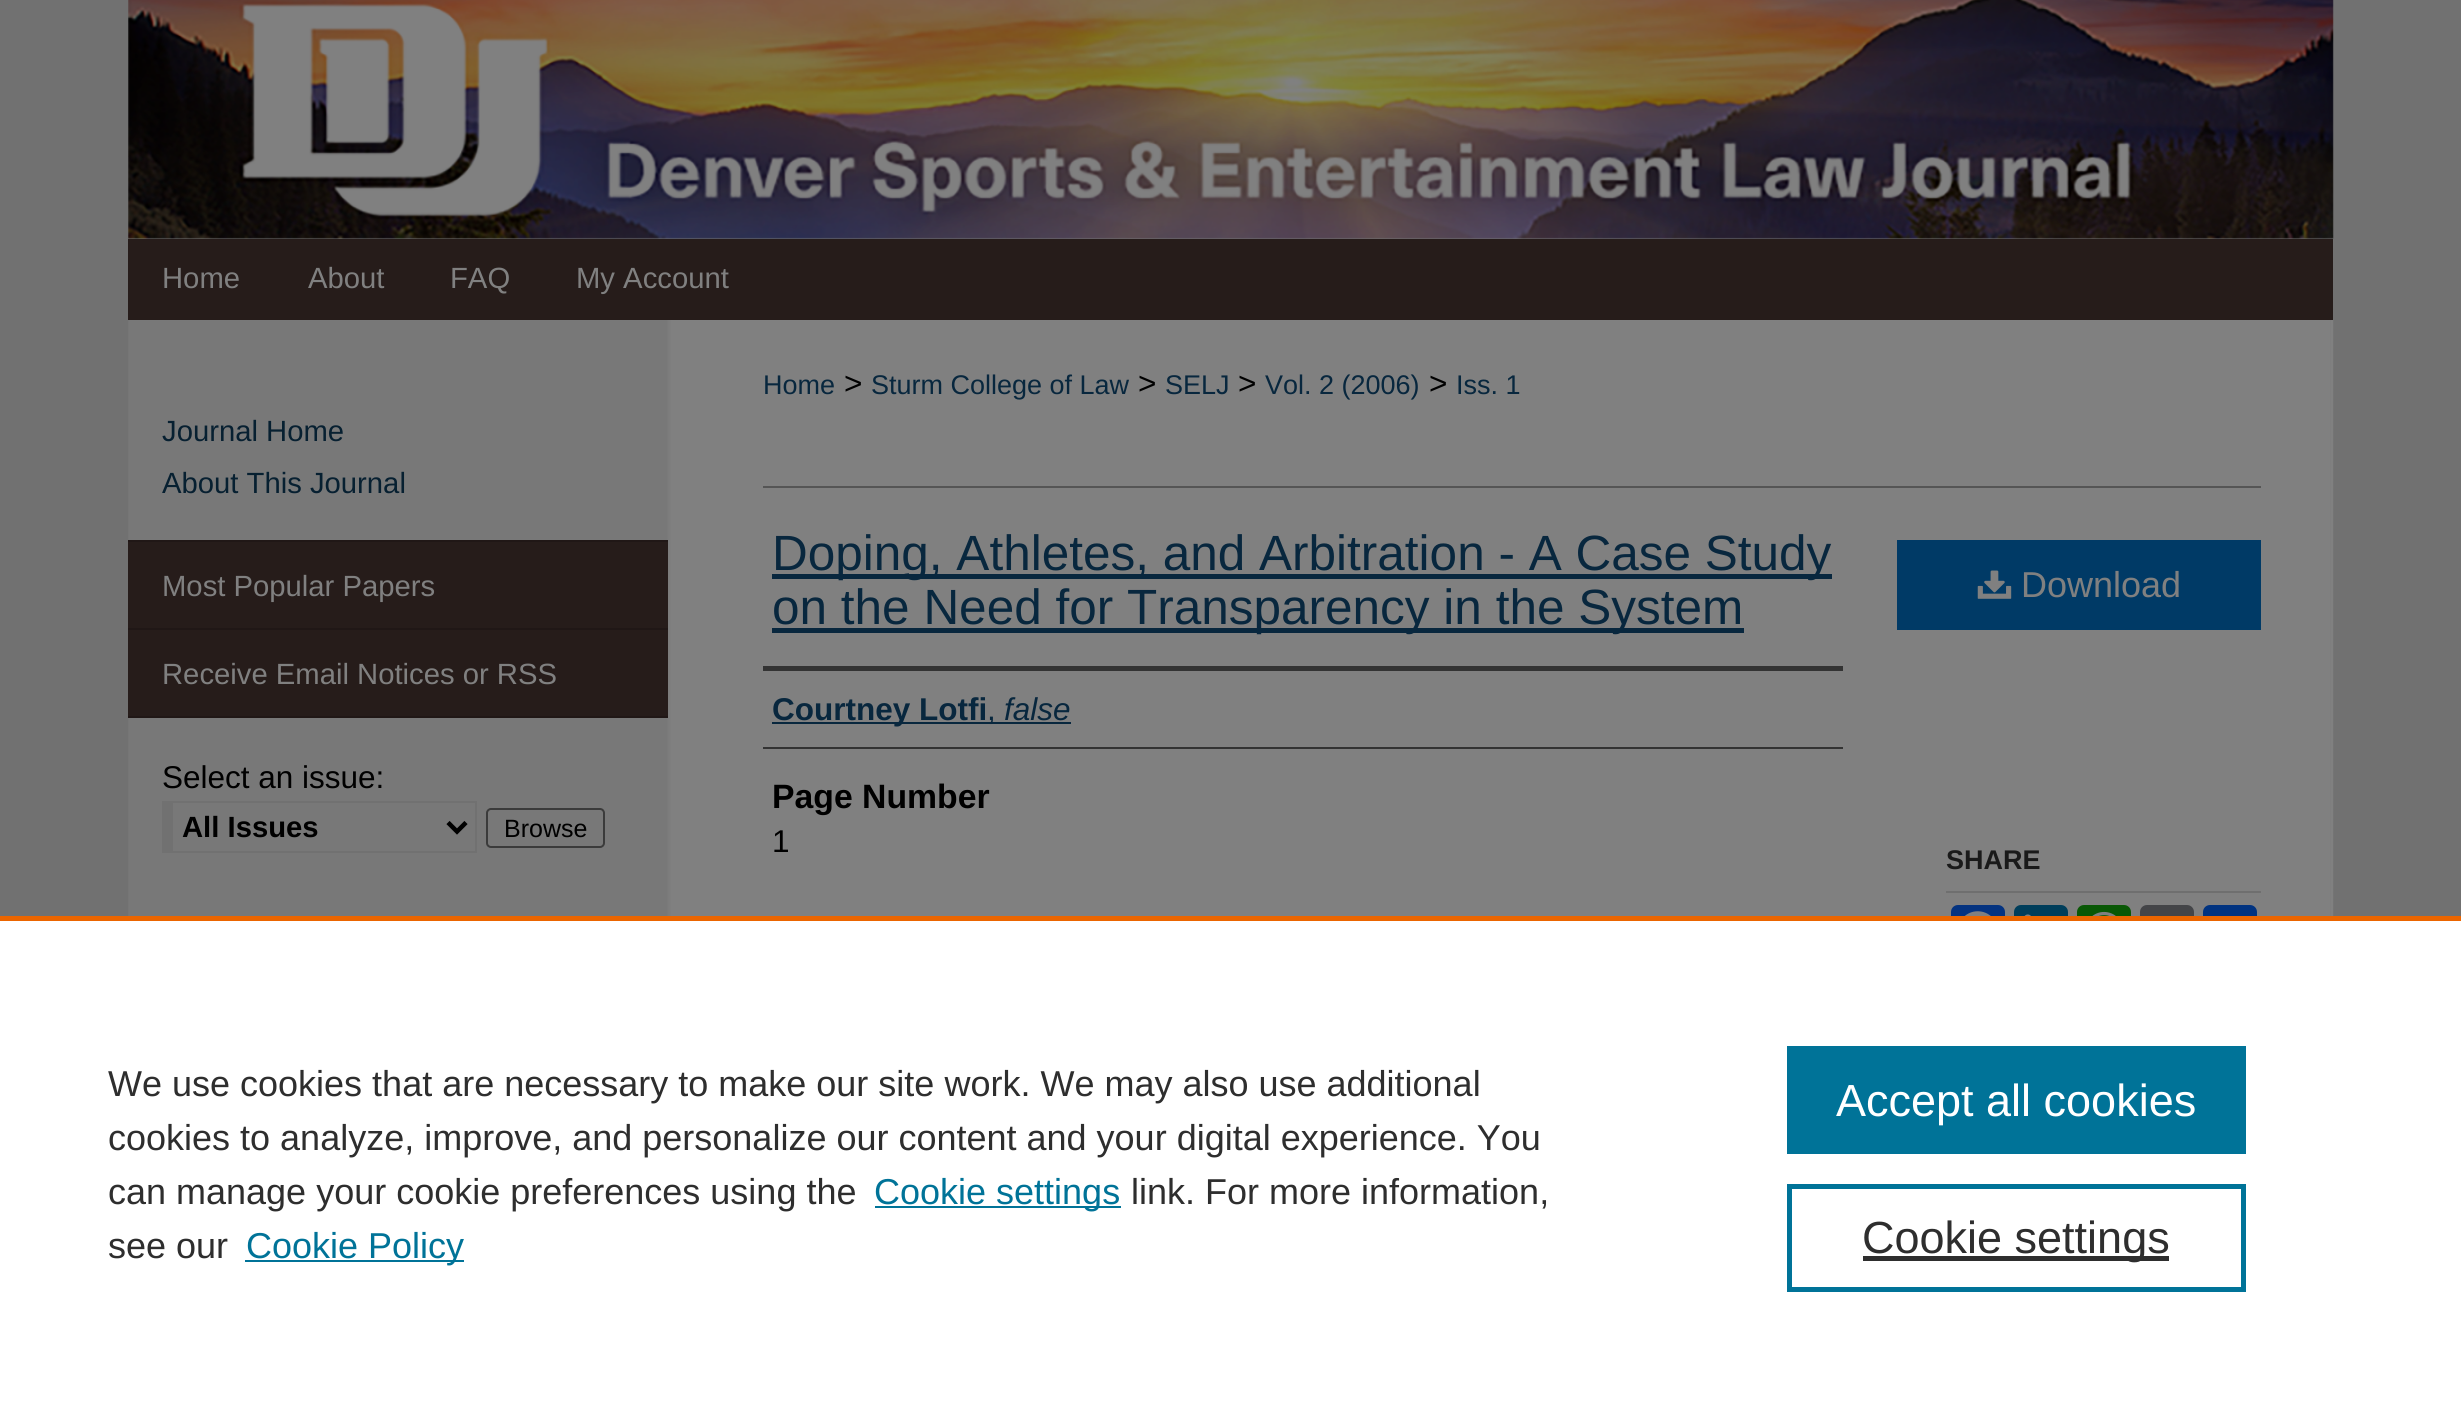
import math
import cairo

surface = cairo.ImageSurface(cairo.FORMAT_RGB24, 2461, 1410)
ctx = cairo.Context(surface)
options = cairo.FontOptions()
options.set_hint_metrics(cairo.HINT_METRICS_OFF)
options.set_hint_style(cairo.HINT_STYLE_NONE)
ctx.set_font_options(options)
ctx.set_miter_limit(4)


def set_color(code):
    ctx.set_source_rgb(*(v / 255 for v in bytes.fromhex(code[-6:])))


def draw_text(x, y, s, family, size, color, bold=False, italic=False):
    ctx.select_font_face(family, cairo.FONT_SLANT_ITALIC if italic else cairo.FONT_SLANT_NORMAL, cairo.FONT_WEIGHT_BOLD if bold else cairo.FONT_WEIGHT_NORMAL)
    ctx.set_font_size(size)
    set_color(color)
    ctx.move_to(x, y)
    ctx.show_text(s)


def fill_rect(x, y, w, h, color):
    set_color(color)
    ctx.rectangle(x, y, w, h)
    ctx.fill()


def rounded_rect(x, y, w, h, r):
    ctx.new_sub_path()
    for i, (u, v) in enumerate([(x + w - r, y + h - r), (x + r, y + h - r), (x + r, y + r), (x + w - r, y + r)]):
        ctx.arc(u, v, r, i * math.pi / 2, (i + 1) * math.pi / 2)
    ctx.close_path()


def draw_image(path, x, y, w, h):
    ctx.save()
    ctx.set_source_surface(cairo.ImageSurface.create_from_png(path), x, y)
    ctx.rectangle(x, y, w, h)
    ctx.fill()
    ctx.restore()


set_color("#717171")
ctx.paint()
draw_image("assets/img1.png", 128, 0, 2206, 239)
draw_image("assets/img2.png", 128, 319, 2206, 597)
fill_rect(128, 239, 2205, 81, "#261c1a")
draw_text(162, 288, "Home", "Liberation Sans", 29.25, "#808080")
draw_text(308, 288, "About", "Liberation Sans", 29.25, "#808080")
draw_text(450, 288, "FAQ", "Liberation Sans", 29.25, "#808080")
draw_text(576, 288, "My Account", "Liberation Sans", 29.25, "#808080")
draw_text(162, 441, "Journal Home", "Liberation Sans", 29.25, "#072031")
draw_text(162, 493, "About This Journal", "Liberation Sans", 29.25, "#072031")
fill_rect(128, 542, 540, 86, "#261c1a")
fill_rect(128, 540, 540, 2, "#201716")
fill_rect(128, 628, 540, 2, "#201716")
draw_text(162, 596, "Most Popular Papers", "Liberation Sans", 29.25, "#808080")
fill_rect(128, 630, 540, 86, "#261c1a")
fill_rect(128, 716, 540, 2, "#201716")
draw_text(162, 684, "Receive Email Notices or RSS", "Liberation Sans", 29.25, "#808080")
draw_text(162, 788, "Select an issue:", "Liberation Sans", 31.5, "#000000")
fill_rect(173, 801, 304, 2, "#717171")
fill_rect(475, 801, 2, 52, "#717171")
fill_rect(173, 851, 304, 2, "#717171")
fill_rect(162, 801, 11, 52, "#717171")
ctx.new_path()
ctx.move_to(448, 822.5)
ctx.line_to(457, 831.5)
ctx.line_to(466, 822.5)
set_color("#000000")
ctx.set_line_width(4.5)
ctx.stroke()
draw_text(182, 837, "All Issues", "Liberation Sans", 29.25, "#000000", bold=True)
rounded_rect(487, 809, 117, 38, 4)
set_color("#3b3b3b")
ctx.set_line_width(2)
ctx.stroke()
draw_text(504, 837, "Browse", "Liberation Sans", 25, "#000000")
fill_rect(2331, 320, 2, 596, "#808080")
draw_text(763, 394, "Home", "Liberation Sans", 27, "#08273e")
draw_text(844, 394, ">", "Liberation Sans", 31.5, "#000000")
draw_text(871, 394, "Sturm College of Law", "Liberation Sans", 27, "#08273e")
draw_text(1138, 394, ">", "Liberation Sans", 31.5, "#000000")
draw_text(1165, 394, "SELJ", "Liberation Sans", 27, "#08273e")
draw_text(1238, 394, ">", "Liberation Sans", 31.5, "#000000")
draw_text(1265, 394, "Vol. 2 (2006)", "Liberation Sans", 27, "#08273e")
draw_text(1429, 394, ">", "Liberation Sans", 31.5, "#000000")
draw_text(1456, 394, "Iss. 1", "Liberation Sans", 27, "#08273e")
fill_rect(763, 486, 1498, 2, "#555555")
fill_rect(772, 574, 1060, 5, "#08273e")
draw_text(772, 570, "Doping, Athletes, and Arbitration - A Case Study", "Liberation Sans", 49.5, "#08273e")
fill_rect(772, 628, 972, 5, "#08273e")
draw_text(772, 624, "on the Need for Transparency in the System", "Liberation Sans", 49.5, "#08273e")
fill_rect(763, 666, 1080, 5, "#333333")
fill_rect(763, 747, 1080, 2, "#333333")
fill_rect(772, 722, 299, 2, "#08273e")
draw_text(772, 720, "Courtney Lotfi", "Liberation Sans", 31.5, "#08273e", bold=True)
draw_text(987, 720, ",", "Liberation Sans", 31.5, "#08273e")
draw_text(1004, 720, "false", "Liberation Sans", 31.5, "#08273e", italic=True)
draw_text(772, 808, "Page Number", "Liberation Sans", 33.75, "#000000", bold=True)
draw_text(772, 852, "1", "Liberation Sans", 31.5, "#000000")
fill_rect(1897, 540, 364, 90, "#003a66")
draw_image("assets/img3.png", 1977, 570, 35, 29)
draw_text(2021, 597, "Download", "Liberation Sans", 36, "#808080")
fill_rect(1946, 891, 315, 2, "#6f6f6f")
draw_text(1946, 869, "SHARE", "Liberation Sans", 27, "#1a1a1a", bold=True)
set_color("#043380")
rounded_rect(1951, 905, 54, 54, 7)
ctx.fill()
draw_image("assets/img4.png", 1964, 911, 27, 5)
set_color("#003e5b")
rounded_rect(2014, 905, 54, 54, 7)
ctx.fill()
draw_image("assets/img5.png", 2024, 914, 7, 2)
set_color("#095805")
rounded_rect(2077, 905, 54, 54, 7)
ctx.fill()
draw_image("assets/img6.png", 2092, 911, 24, 5)
set_color("#444548")
rounded_rect(2140, 905, 54, 54, 7)
ctx.fill()
set_color("#013380")
rounded_rect(2203, 905, 54, 54, 7)
ctx.fill()
fill_rect(0, 921, 2461, 489, "#ffffff")
fill_rect(0, 916, 2461, 5, "#eb6500")
draw_text(108, 1096, "We use cookies that are necessary to make our site work. We may also use additional", "Liberation Sans", 36, "#2e2e2e")
draw_text(108, 1150, "cookies to analyze, improve, and personalize our content and your digital experience. You", "Liberation Sans", 36, "#2e2e2e")
draw_text(108, 1204, "can manage your cookie preferences using the", "Liberation Sans", 36, "#2e2e2e")
fill_rect(875, 1206, 246, 2, "#007398")
draw_text(874, 1204, "Cookie settings", "Liberation Sans", 36, "#007398")
draw_text(1131, 1204, "link. For more information,", "Liberation Sans", 36, "#2e2e2e")
draw_text(108, 1258, "see our", "Liberation Sans", 36, "#2e2e2e")
fill_rect(245, 1260, 219, 2, "#007398")
draw_text(246, 1258, "Cookie Policy", "Liberation Sans", 36, "#007398")
fill_rect(1787, 1046, 459, 108, "#007398")
draw_text(1836, 1116, "Accept all cookies", "Liberation Sans", 45, "#ffffff")
ctx.rectangle(1789.5, 1186.5, 454, 103)
set_color("#007398")
ctx.set_line_width(5)
ctx.stroke()
fill_rect(1863, 1256, 306, 5, "#2e2e2e")
draw_text(1862, 1253, "Cookie settings", "Liberation Sans", 45, "#2e2e2e")
surface.write_to_png("output.png")
